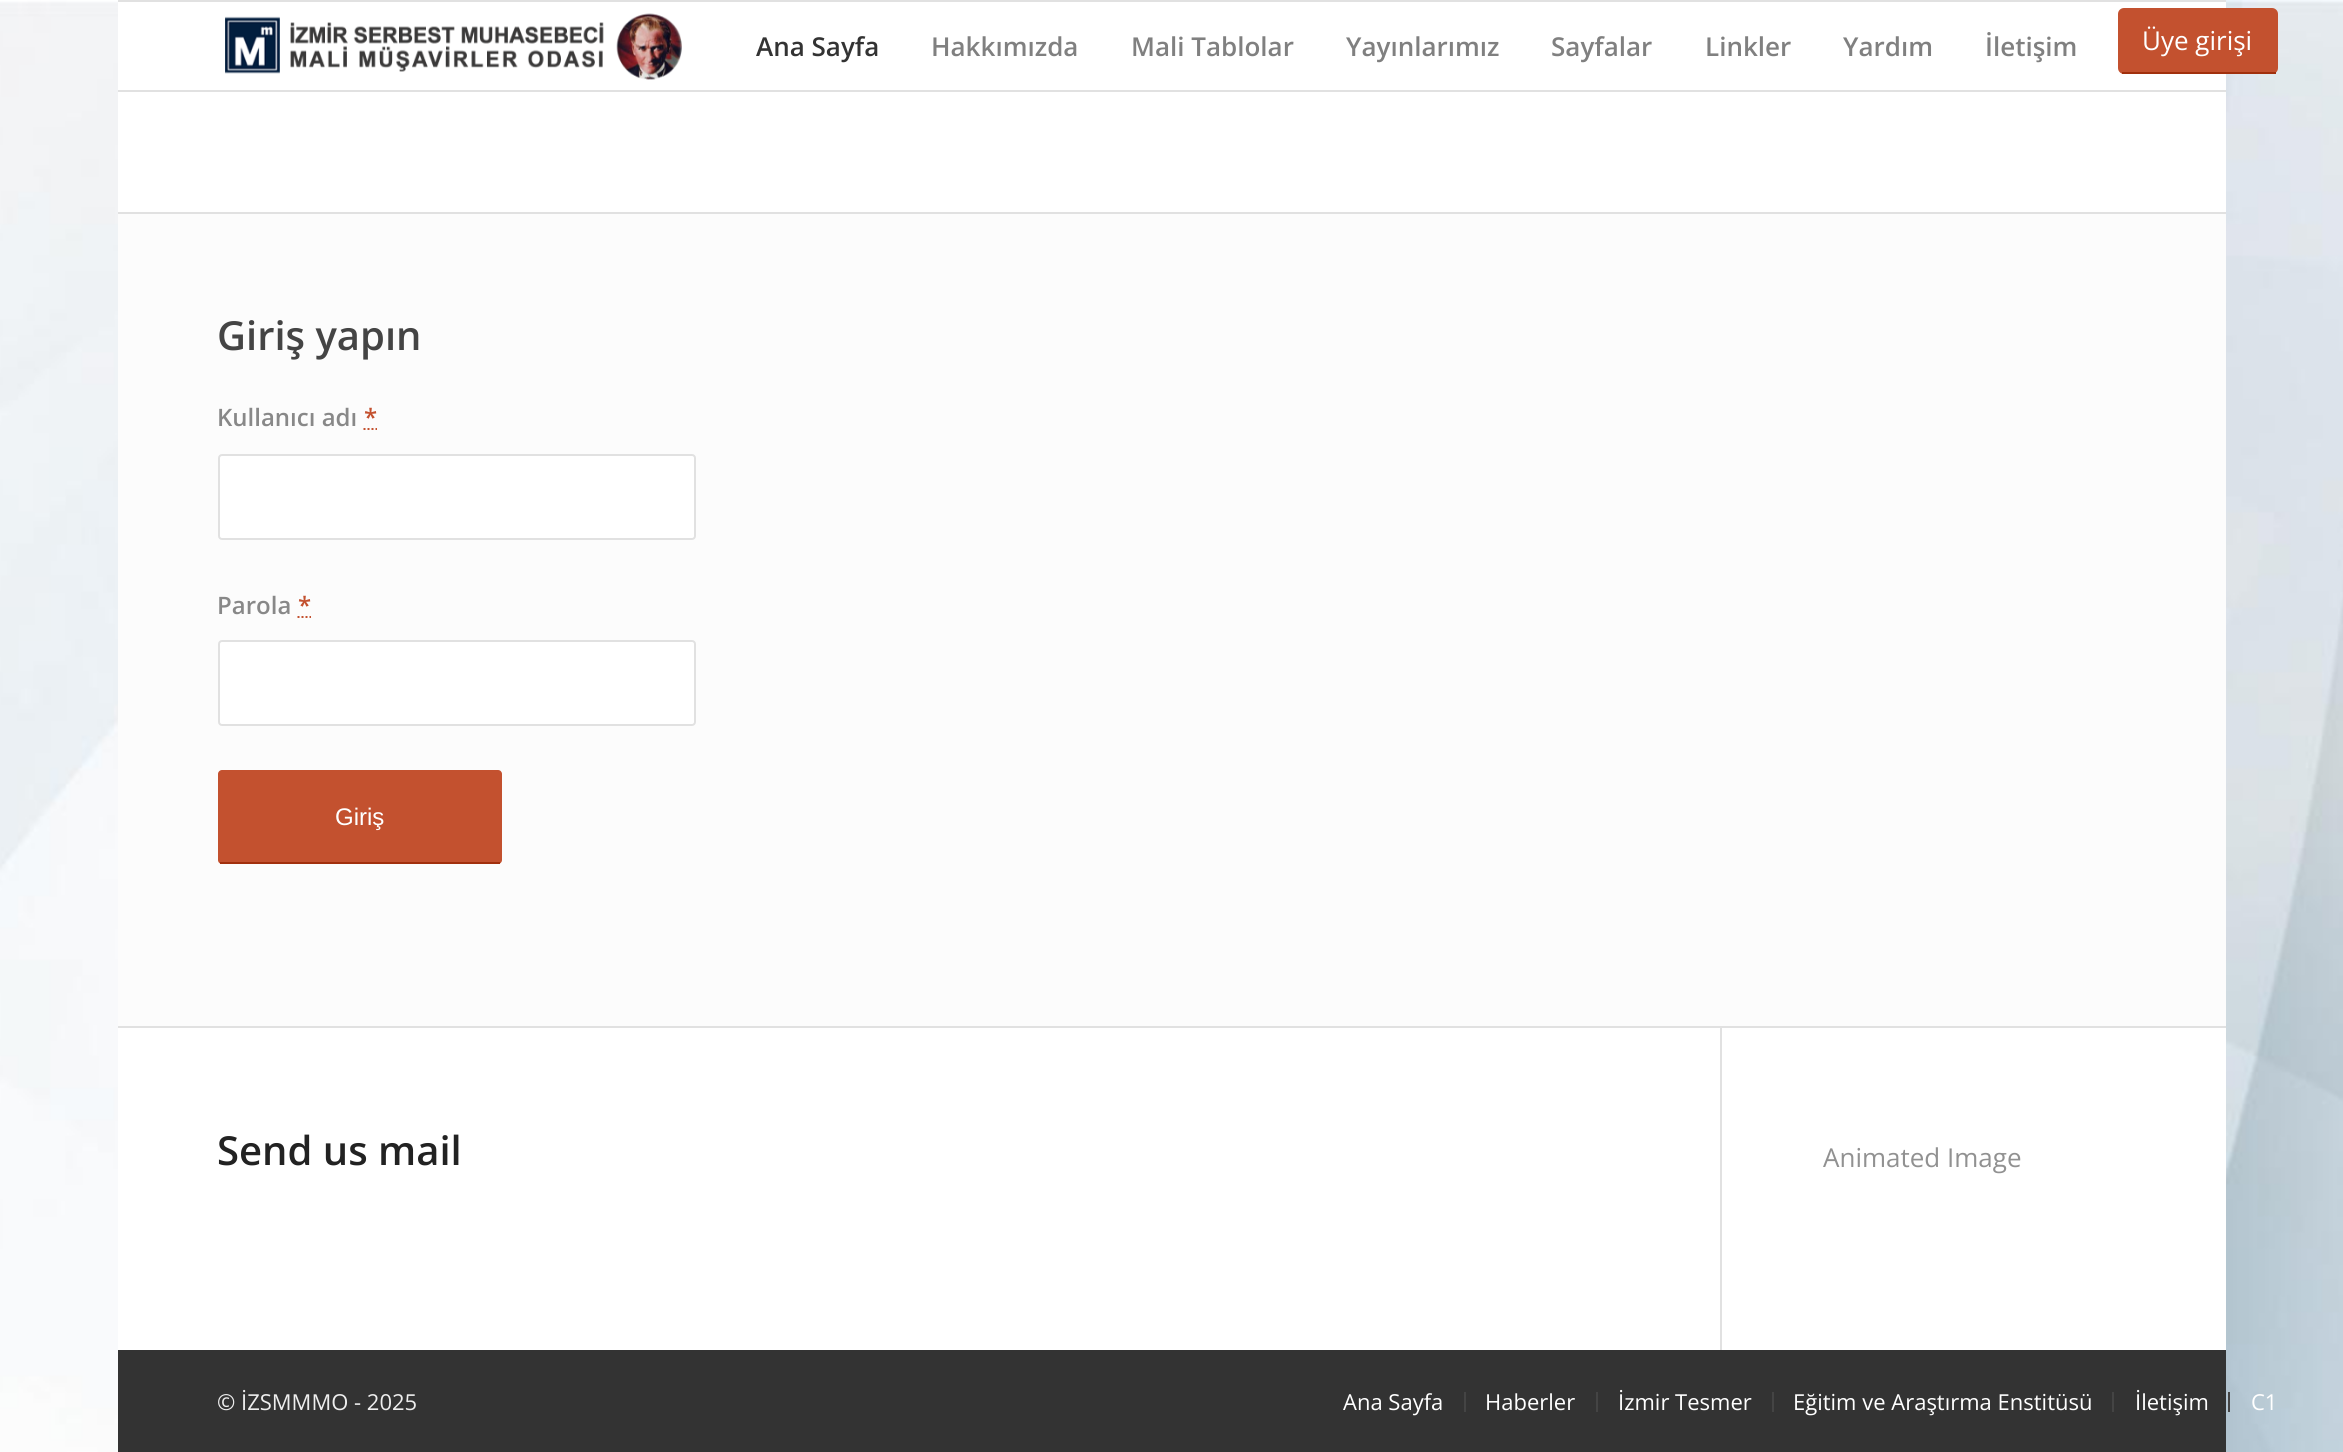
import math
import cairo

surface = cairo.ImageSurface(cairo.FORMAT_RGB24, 2343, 1452)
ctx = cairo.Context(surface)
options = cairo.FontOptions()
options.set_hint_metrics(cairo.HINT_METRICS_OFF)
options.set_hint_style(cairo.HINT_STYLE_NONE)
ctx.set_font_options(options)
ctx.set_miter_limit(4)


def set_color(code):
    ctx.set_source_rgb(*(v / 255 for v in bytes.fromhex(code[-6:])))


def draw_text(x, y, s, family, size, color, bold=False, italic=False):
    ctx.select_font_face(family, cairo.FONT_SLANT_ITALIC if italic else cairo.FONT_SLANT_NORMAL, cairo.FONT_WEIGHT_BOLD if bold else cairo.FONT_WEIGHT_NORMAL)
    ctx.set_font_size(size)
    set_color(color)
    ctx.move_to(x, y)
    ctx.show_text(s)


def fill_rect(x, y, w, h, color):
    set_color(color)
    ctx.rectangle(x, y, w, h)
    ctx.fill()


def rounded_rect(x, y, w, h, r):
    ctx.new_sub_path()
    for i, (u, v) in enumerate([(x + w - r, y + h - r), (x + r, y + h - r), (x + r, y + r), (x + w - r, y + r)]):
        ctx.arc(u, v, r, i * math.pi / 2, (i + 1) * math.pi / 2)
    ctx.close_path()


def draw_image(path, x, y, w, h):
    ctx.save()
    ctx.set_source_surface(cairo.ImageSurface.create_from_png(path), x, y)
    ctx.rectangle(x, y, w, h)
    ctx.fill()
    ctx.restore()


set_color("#ffffff")
ctx.paint()
draw_image("assets/img1.png", 0, 0, 2343, 1452)
fill_rect(118, 0, 2108, 2, "#e1e1e1")
fill_rect(118, 2, 2108, 1348, "#ffffff")
fill_rect(118, 90, 2108, 2, "#e1e1e1")
draw_image("assets/img2.png", 225, 13, 457, 67)
draw_text(756, 56, "Ana Sayfa", "Open Sans SemiBold", 26, "#333333")
draw_text(931, 56, "Hakkımızda", "Open Sans SemiBold", 26, "#808080")
draw_text(1131, 56, "Mali Tablolar", "Open Sans SemiBold", 26, "#808080")
draw_text(1346, 56, "Yayınlarımız", "Open Sans SemiBold", 26, "#808080")
draw_text(1551, 56, "Sayfalar", "Open Sans SemiBold", 26, "#808080")
draw_text(1705, 56, "Linkler", "Open Sans SemiBold", 26, "#808080")
draw_text(1843, 56, "Yardım", "Open Sans SemiBold", 26, "#808080")
draw_text(1985, 56, "İletişim", "Open Sans SemiBold", 26, "#808080")
set_color("#c3512f")
rounded_rect(2118, 8, 160, 66, 6)
ctx.fill()
fill_rect(2122, 72, 154, 2, "#a1300d")
draw_text(2142, 50, "Üye girişi", "Open Sans", 26, "#ffffff")
fill_rect(118, 214, 2108, 812, "#fcfcfc")
fill_rect(118, 212, 2108, 2, "#e1e1e1")
draw_text(217, 350, "Giriş yapın", "Open Sans SemiBold", 40, "#444444")
draw_text(217, 426, "Kullanıcı adı", "Open Sans SemiBold", 24, "#888888")
draw_text(364, 426, "*", "Open Sans SemiBold", 24, "#c3512f")
ctx.new_path()
ctx.move_to(363.5, 429)
ctx.line_to(365.5, 429)
ctx.move_to(367.5, 429)
ctx.line_to(369.5, 429)
ctx.move_to(371.5, 429)
ctx.line_to(373.5, 429)
ctx.move_to(375.5, 429)
ctx.line_to(377, 429)
ctx.stroke()
set_color("#ffffff")
rounded_rect(219, 455, 476, 84, 3)
ctx.fill_preserve()
set_color("#e1e1e1")
ctx.stroke()
draw_text(217, 614, "Parola", "Open Sans SemiBold", 24, "#888888")
draw_text(298, 614, "*", "Open Sans SemiBold", 24, "#c3512f")
ctx.new_path()
ctx.move_to(297.5, 617)
ctx.line_to(299.5, 617)
ctx.move_to(301.5, 617)
ctx.line_to(303.5, 617)
ctx.move_to(305.5, 617)
ctx.line_to(307.5, 617)
ctx.move_to(309.5, 617)
ctx.line_to(311, 617)
ctx.stroke()
set_color("#ffffff")
rounded_rect(219, 641, 476, 84, 3)
ctx.fill_preserve()
set_color("#e1e1e1")
ctx.stroke()
set_color("#c3512f")
rounded_rect(218, 770, 284, 94, 4)
ctx.fill()
fill_rect(220, 862, 280, 2, "#a1300d")
draw_text(335, 825, "Giriş", "Liberation Sans", 24, "#ffffff")
fill_rect(118, 1026, 2108, 2, "#e1e1e1")
draw_text(217, 1165, "Send us mail", "Open Sans SemiBold", 40, "#222222")
fill_rect(1720, 1028, 2, 322, "#e1e1e1")
draw_text(1823, 1167, "Animated Image", "Open Sans", 26, "#919191")
fill_rect(118, 1350, 2108, 102, "#333333")
draw_text(217, 1410, "© İZSMMMO - 2025", "Open Sans", 22, "#eeeeee")
draw_text(1343, 1410, "Ana Sayfa", "Open Sans", 22, "#ffffff")
fill_rect(1464, 1392, 2, 20, "#444444")
draw_text(1485, 1410, "Haberler", "Open Sans", 22, "#ffffff")
fill_rect(1596, 1392, 2, 20, "#444444")
draw_text(1618, 1410, "İzmir Tesmer", "Open Sans", 22, "#ffffff")
fill_rect(1772, 1392, 2, 20, "#444444")
draw_text(1793, 1410, "Eğitim ve Araştırma Enstitüsü", "Open Sans", 22, "#ffffff")
fill_rect(2112, 1392, 2, 20, "#444444")
draw_text(2135, 1410, "İletişim", "Open Sans", 22, "#ffffff")
fill_rect(2228, 1392, 2, 20, "#444444")
draw_text(2251, 1410, "C1", "Open Sans", 22, "#ffffff")
surface.write_to_png("output.png")
